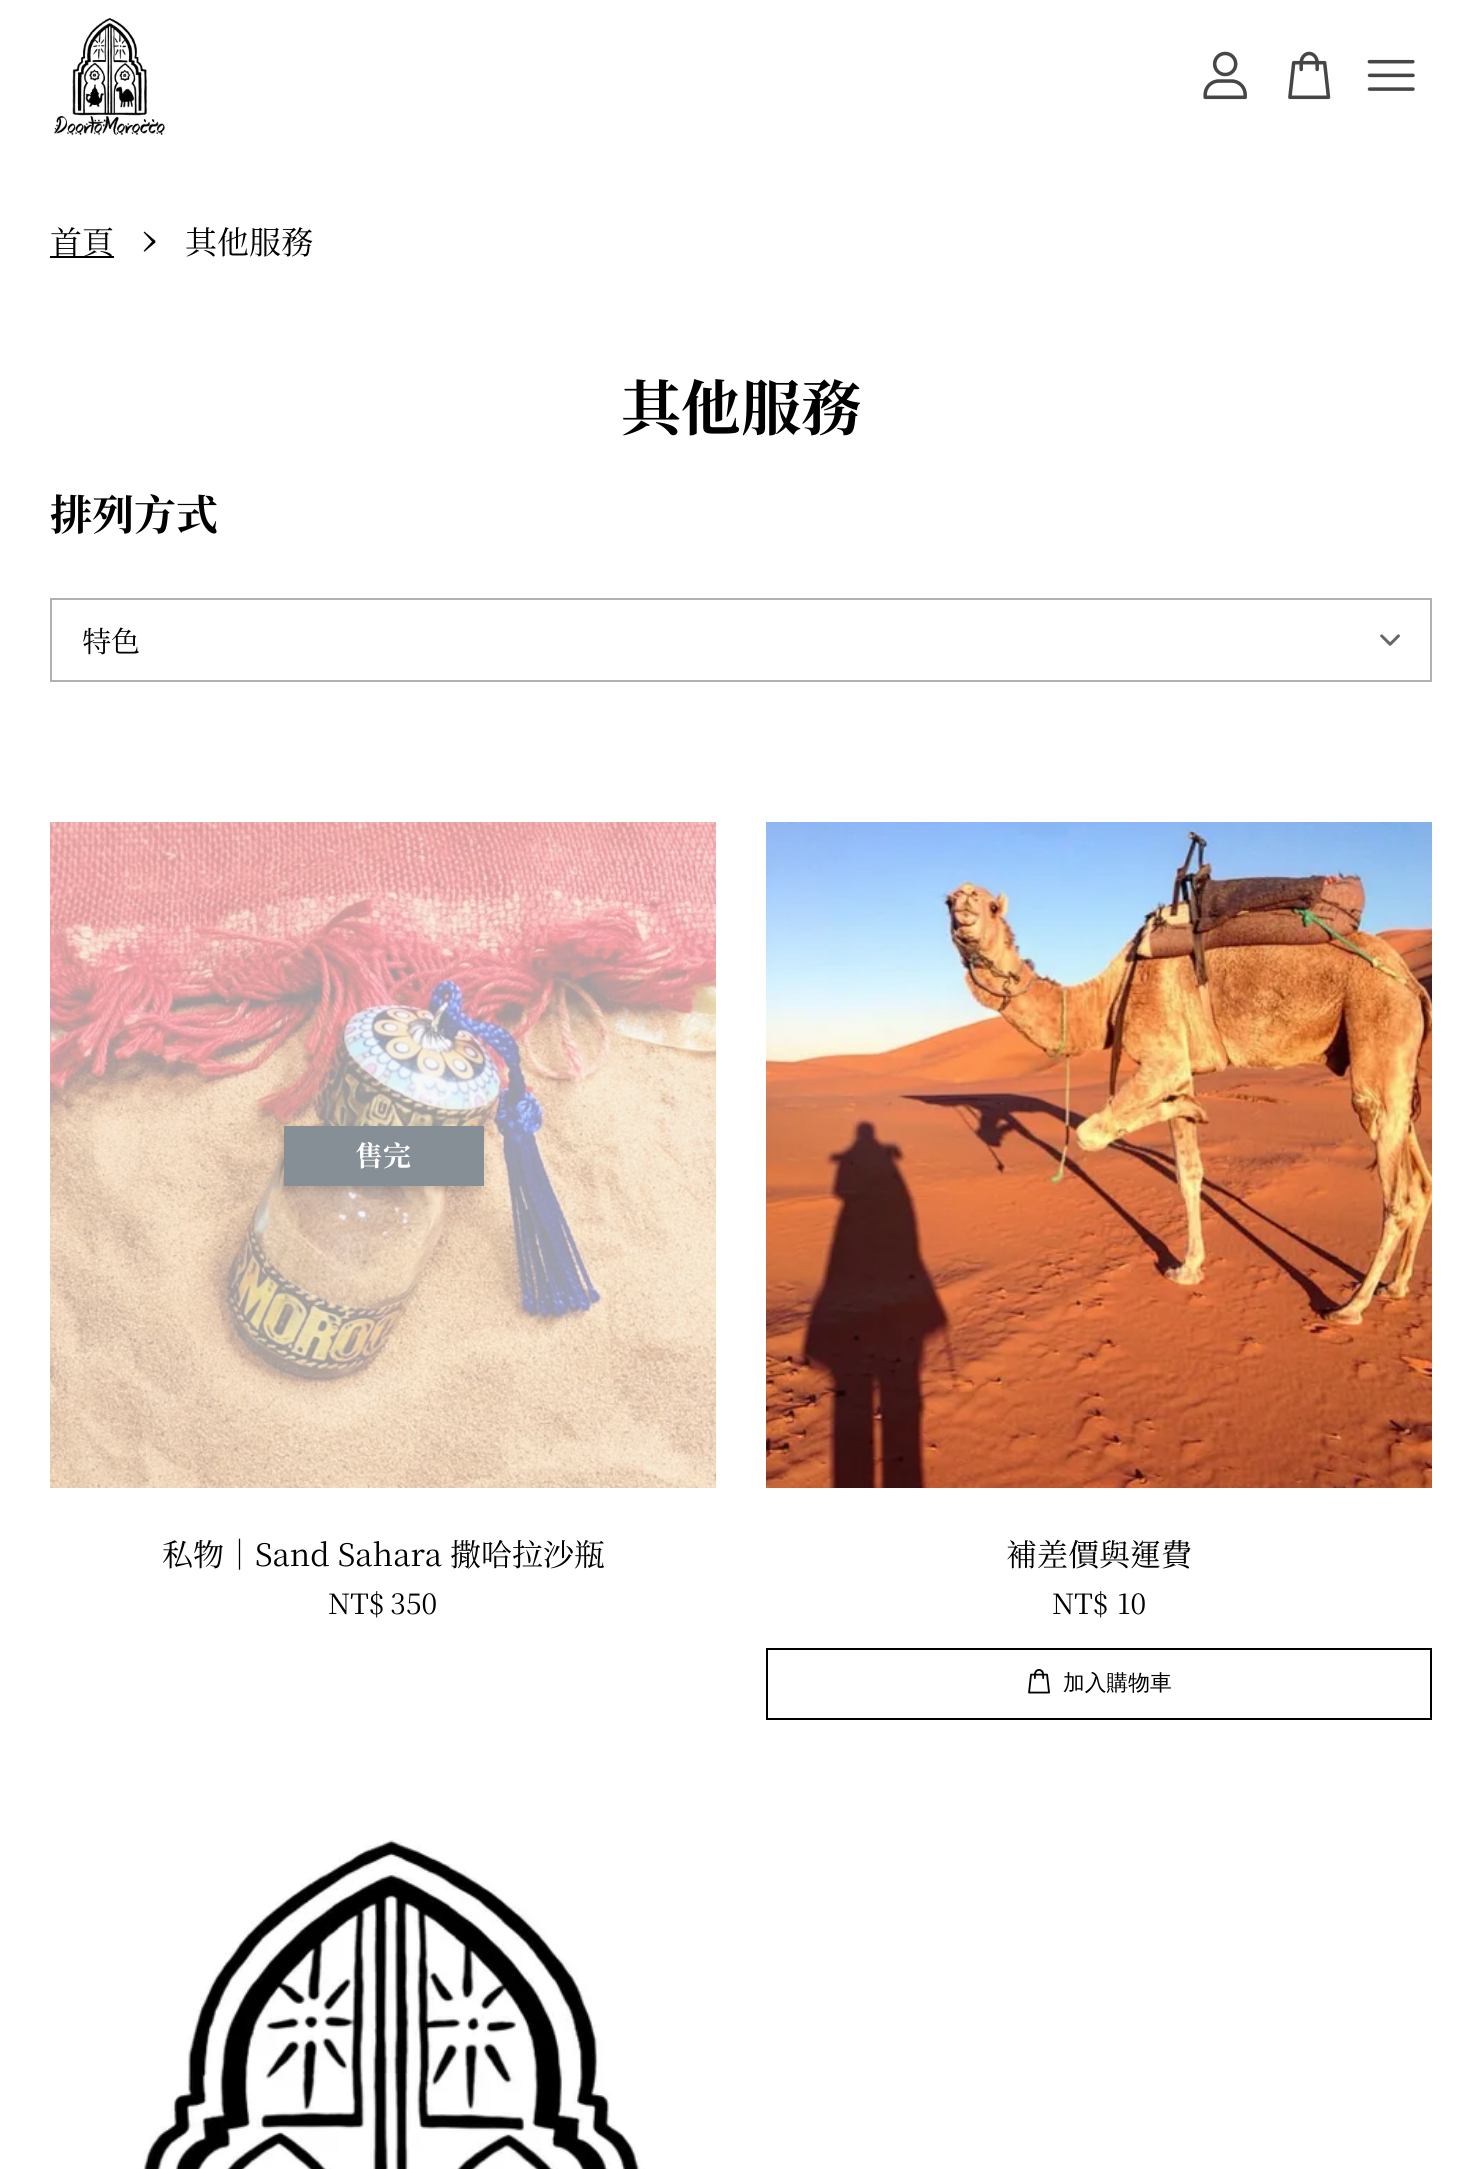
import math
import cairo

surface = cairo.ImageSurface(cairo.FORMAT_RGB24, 1481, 2169)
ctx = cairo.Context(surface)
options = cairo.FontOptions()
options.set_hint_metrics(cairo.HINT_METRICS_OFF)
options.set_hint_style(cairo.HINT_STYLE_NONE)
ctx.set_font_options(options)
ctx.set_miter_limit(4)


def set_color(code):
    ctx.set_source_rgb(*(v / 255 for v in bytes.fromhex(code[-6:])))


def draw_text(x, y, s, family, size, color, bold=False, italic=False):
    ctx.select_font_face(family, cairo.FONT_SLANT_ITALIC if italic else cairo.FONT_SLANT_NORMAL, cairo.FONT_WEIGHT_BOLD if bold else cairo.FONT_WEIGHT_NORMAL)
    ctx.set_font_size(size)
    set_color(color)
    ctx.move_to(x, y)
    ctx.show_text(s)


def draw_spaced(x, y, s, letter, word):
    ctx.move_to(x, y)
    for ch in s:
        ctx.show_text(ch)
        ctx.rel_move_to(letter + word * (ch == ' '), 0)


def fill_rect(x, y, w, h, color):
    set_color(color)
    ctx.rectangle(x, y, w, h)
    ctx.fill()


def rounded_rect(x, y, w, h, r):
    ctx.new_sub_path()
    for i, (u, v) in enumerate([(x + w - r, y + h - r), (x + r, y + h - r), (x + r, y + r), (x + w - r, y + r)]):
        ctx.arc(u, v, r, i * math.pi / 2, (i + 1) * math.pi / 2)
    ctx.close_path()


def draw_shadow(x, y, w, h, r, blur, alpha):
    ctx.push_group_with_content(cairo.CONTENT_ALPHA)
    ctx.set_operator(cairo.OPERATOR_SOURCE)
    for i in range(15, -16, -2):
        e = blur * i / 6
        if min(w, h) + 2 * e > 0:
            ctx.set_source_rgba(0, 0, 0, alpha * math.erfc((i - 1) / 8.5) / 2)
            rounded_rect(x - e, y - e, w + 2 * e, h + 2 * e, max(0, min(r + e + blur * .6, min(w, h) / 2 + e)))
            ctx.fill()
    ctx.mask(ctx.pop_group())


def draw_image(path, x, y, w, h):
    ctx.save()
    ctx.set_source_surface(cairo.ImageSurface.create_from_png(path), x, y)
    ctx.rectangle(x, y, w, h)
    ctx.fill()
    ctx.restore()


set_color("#ffffff")
ctx.paint()
draw_image("assets/img1.png", 54, 18, 111, 118)
draw_image("assets/img2.png", 1203, 51, 44, 49)
draw_image("assets/img3.png", 1288, 51, 43, 49)
draw_image("assets/img4.png", 1367, 59, 48, 32)
fill_rect(50, 256, 64, 2, "#000000")
draw_text(50, 254, "首頁", "Noto Serif TC", 32, "#000000")
draw_text(142, 254, "›", "Noto Serif TC", 45, "#000000")
draw_text(185, 254, "其他服務", "Noto Serif TC", 32, "#000000")
draw_text(621, 430, "其他服務", "Noto Serif TC", 60, "#000000", bold=True)
draw_text(50, 530, "排列方式", "Noto Serif TC", 42, "#000000", bold=True)
draw_image("assets/img5.png", 1380, 634, 20, 12)
ctx.rectangle(51, 599, 1380, 82)
set_color("#b1b1b1")
ctx.stroke()
draw_text(82, 652, "特色", "Noto Serif TC", 29, "#000000")
draw_image("assets/img6.png", 50, 822, 666, 666)
set_color("#000000")
draw_shadow(280, 1130, 200, 60, 0, 5, 0.15)
fill_rect(284, 1126, 200, 60, "#868e96")
draw_text(355, 1166, "售完", "Noto Serif TC", 28, "#ffffff", bold=True)
draw_text(162, 1566, "私物｜Sand Sahara 撒哈拉沙瓶", "Noto Serif TC", 31, "#000000")
ctx.set_font_size(28)
draw_spaced(328, 1614, "NT$ 350", 0, -1)
draw_image("assets/img7.png", 766, 822, 666, 666)
draw_text(1006, 1566, "補差價與運費", "Noto Serif TC", 31, "#000000")
ctx.set_font_size(28)
draw_spaced(1052, 1614, "NT$ 10", 0, 2)
ctx.rectangle(767, 1649, 664, 70)
ctx.stroke()
draw_image("assets/img8.png", 1028, 1669, 22, 25)
draw_text(1063, 1690, "加入購物車", "WenQuanYi Zen Hei Medium", 21.75, "#000000")
draw_image("assets/img9.png", 143, 1839, 502, 330)
surface.write_to_png("output.png")
